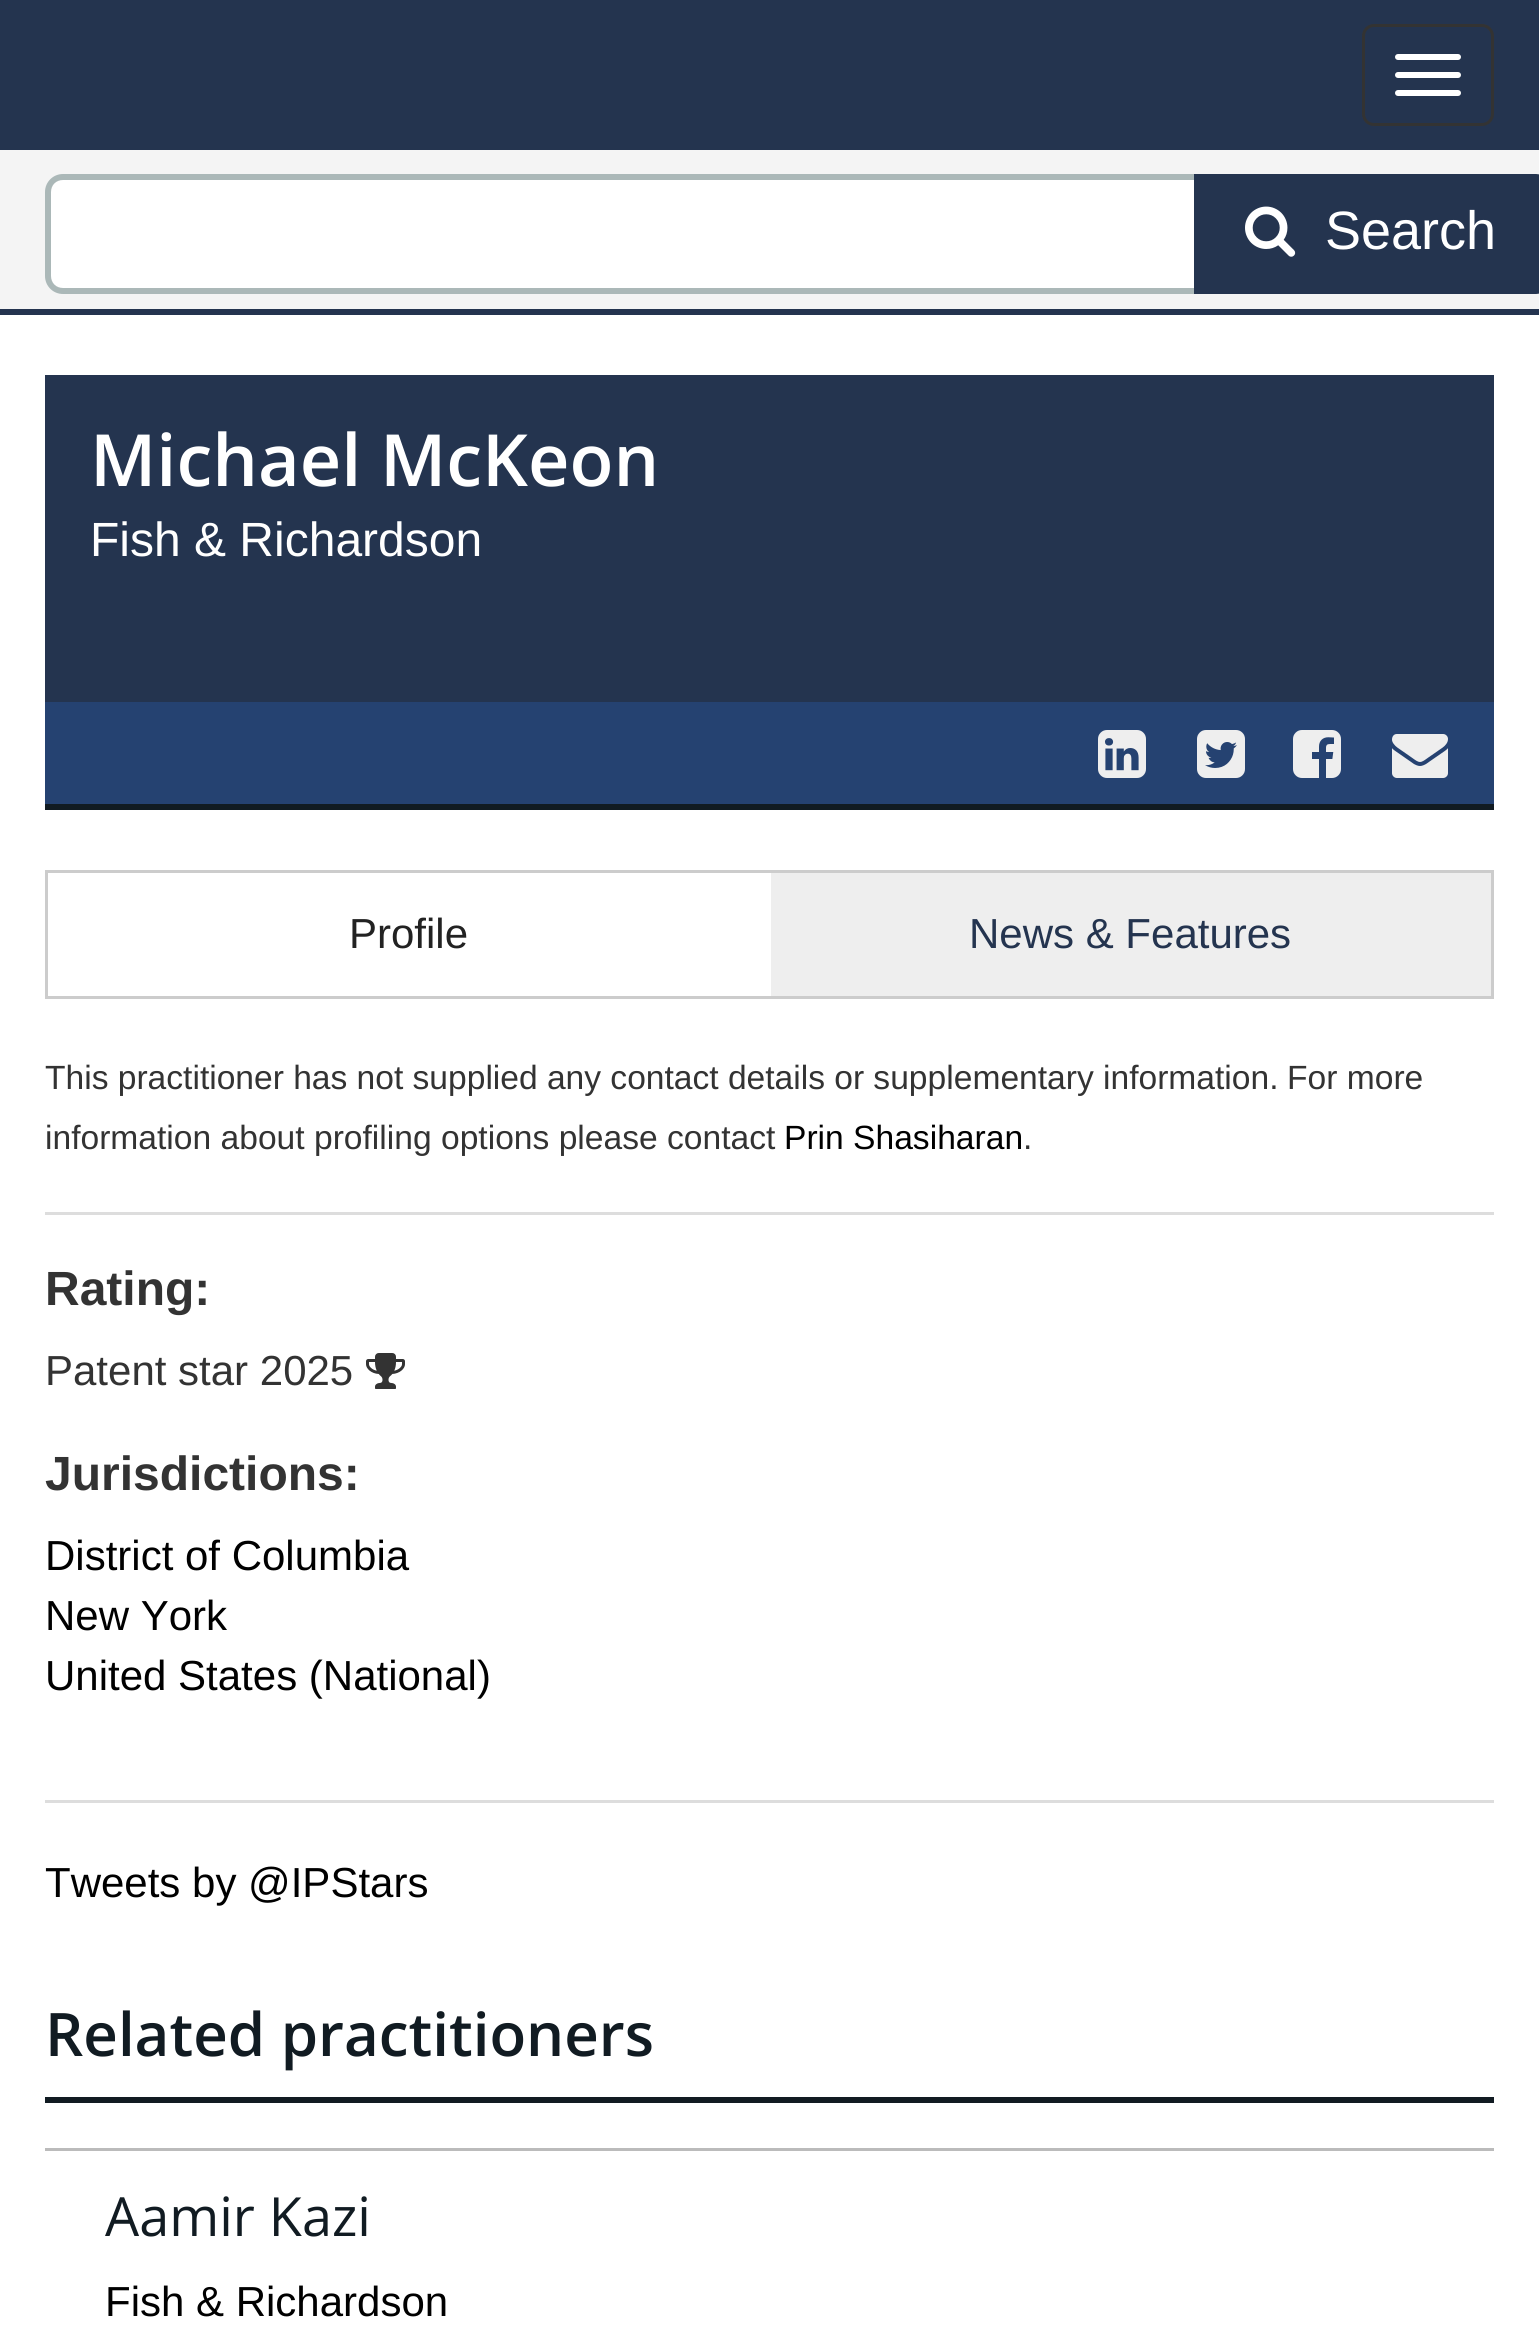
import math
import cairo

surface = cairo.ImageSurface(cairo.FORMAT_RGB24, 1539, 2325)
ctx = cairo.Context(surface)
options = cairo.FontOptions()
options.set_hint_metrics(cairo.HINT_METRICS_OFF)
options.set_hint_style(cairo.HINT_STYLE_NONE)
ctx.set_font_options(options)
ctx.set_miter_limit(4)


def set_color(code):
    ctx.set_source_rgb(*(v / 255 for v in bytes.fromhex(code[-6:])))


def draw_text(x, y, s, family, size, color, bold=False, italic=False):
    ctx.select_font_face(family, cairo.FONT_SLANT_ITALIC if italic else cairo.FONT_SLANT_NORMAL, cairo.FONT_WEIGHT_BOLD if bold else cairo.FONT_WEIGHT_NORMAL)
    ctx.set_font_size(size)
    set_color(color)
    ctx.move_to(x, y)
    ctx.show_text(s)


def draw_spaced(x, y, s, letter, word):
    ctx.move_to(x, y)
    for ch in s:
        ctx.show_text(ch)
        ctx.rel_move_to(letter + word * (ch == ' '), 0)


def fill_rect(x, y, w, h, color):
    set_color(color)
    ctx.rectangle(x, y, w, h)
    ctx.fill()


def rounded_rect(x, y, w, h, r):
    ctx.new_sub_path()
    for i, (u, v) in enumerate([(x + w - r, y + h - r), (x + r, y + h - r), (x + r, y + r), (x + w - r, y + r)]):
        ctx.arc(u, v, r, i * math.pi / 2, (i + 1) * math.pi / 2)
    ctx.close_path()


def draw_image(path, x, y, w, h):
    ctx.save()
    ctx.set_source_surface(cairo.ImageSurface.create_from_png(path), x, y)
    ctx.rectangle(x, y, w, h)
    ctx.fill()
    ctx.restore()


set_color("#ffffff")
ctx.paint()
fill_rect(0, 0, 1539, 150, "#24344f")
rounded_rect(1363.5, 25.5, 129, 99, 10.5)
set_color("#333333")
ctx.set_line_width(3)
ctx.stroke()
set_color("#ffffff")
rounded_rect(1395, 54, 66, 6, 3)
ctx.fill()
rounded_rect(1395, 72, 66, 6, 3)
ctx.fill()
rounded_rect(1395, 90, 66, 6, 3)
ctx.fill()
fill_rect(0, 150, 1539, 159, "#f4f4f4")
fill_rect(0, 309, 1539, 6, "#24344f")
set_color("#ffffff")
ctx.new_path()
ctx.move_to(63, 180)
ctx.line_to(1194, 180)
ctx.line_to(1194, 288)
ctx.line_to(63, 288)
ctx.curve_to(56.5, 288, 51, 282.5, 51, 276)
ctx.line_to(51, 192)
ctx.curve_to(51, 185.5, 56.5, 180, 63, 180)
ctx.close_path()
ctx.fill()
set_color("#abb8b8")
ctx.set_fill_rule(cairo.FILL_RULE_EVEN_ODD)
ctx.new_path()
ctx.move_to(63, 174)
ctx.line_to(1194, 174)
ctx.line_to(1194, 294)
ctx.line_to(63, 294)
ctx.curve_to(53, 294, 45, 286, 45, 276)
ctx.line_to(45, 192)
ctx.curve_to(45, 182, 53, 174, 63, 174)
ctx.close_path()
ctx.move_to(63, 180)
ctx.line_to(1194, 180)
ctx.line_to(1194, 288)
ctx.line_to(63, 288)
ctx.curve_to(56, 288, 51, 283, 51, 276)
ctx.line_to(51, 192)
ctx.curve_to(51, 185, 56, 180, 63, 180)
ctx.close_path()
ctx.fill()
set_color("#24344f")
ctx.new_path()
ctx.move_to(1194, 174)
ctx.line_to(1536, 174)
ctx.curve_to(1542.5, 174, 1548, 179.5, 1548, 186)
ctx.line_to(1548, 282)
ctx.curve_to(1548, 288.5, 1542.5, 294, 1536, 294)
ctx.line_to(1194, 294)
ctx.close_path()
ctx.fill()
draw_image("assets/img1.png", 1245, 206, 51, 51)
draw_text(1325, 249, "Search", "Liberation Sans", 54, "#ffffff")
fill_rect(45, 702, 1449, 102, "#254271")
fill_rect(45, 804, 1449, 6, "#111b22")
fill_rect(45, 375, 1449, 327, "#24344f")
draw_text(90, 486, "Michael McKeon", "Open Sans SemiBold", 72, "#ffffff")
draw_text(90, 556, "Fish & Richardson", "Liberation Sans", 48, "#ffffff")
draw_image("assets/img2.png", 1098, 730, 48, 48)
draw_image("assets/img3.png", 1197, 730, 48, 48)
draw_image("assets/img4.png", 1293, 730, 48, 48)
draw_image("assets/img5.png", 1392, 734, 56, 44)
ctx.rectangle(46.5, 871.5, 1446, 126)
set_color("#cccccc")
ctx.stroke()
draw_text(349, 948, "Profile", "Liberation Sans", 42, "#222222")
fill_rect(771, 873, 720, 123, "#eeeeee")
draw_text(969, 948, "News & Features", "Liberation Sans", 42, "#24344f")
ctx.set_font_size(33.6)
set_color("#333333")
draw_spaced(45, 1089, "This practitioner has not supplied any contact details or supplementary information.", 0, -0.1)
draw_text(1287, 1089, "For more", "Liberation Sans", 33.6, "#333333")
draw_text(45, 1149, "information about profiling options please contact", "Liberation Sans", 33.6, "#333333")
draw_text(784, 1149, "Prin Shasiharan", "Liberation Sans", 33.6, "#000000")
draw_text(1023, 1149, ".", "Liberation Sans", 33.6, "#333333")
fill_rect(45, 1212, 1449, 3, "#dddddd")
draw_text(45, 1305, "Rating:", "Liberation Sans", 48, "#333333", bold=True)
draw_text(45, 1385, "Patent star 2025", "Liberation Sans", 42, "#333333")
draw_image("assets/img6.png", 366, 1353, 39, 36)
draw_text(45, 1490, "Jurisdictions:", "Liberation Sans", 48, "#333333", bold=True)
draw_text(45, 1570, "District of Columbia", "Liberation Sans", 42, "#000000")
draw_text(45, 1630, "New York", "Liberation Sans", 42, "#000000")
draw_text(45, 1690, "United States (National)", "Liberation Sans", 42, "#000000")
fill_rect(45, 1800, 1449, 3, "#dddddd")
draw_text(45, 1897, "Tweets by @IPStars", "Liberation Sans", 42, "#000000")
fill_rect(45, 2097, 1449, 6, "#111b22")
draw_text(45, 2056, "Related practitioners", "Open Sans SemiBold", 60, "#111b22")
fill_rect(45, 2148, 1449, 3, "#bbbbbb")
draw_text(105, 2236, "Aamir Kazi", "Open Sans", 54, "#111b22")
draw_text(105, 2316, "Fish & Richardson", "Liberation Sans", 42, "#000000")
surface.write_to_png("output.png")
